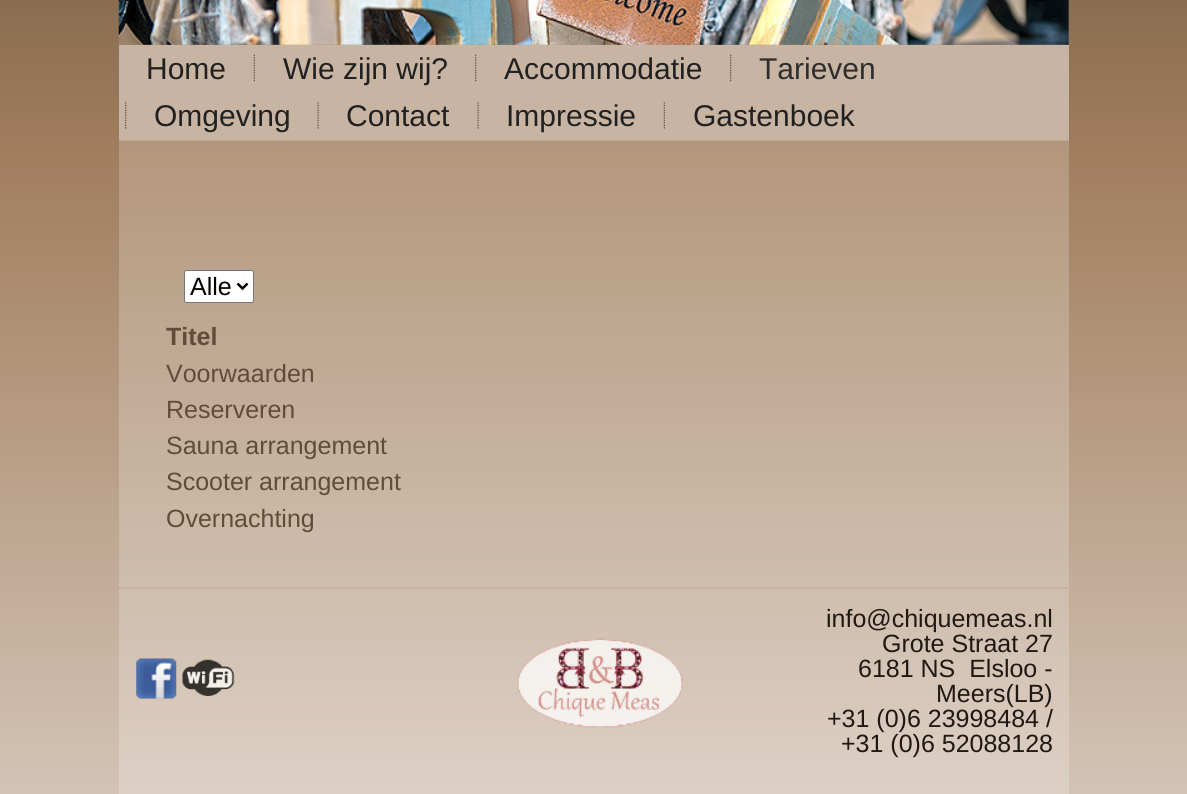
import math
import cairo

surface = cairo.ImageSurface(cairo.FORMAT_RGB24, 1187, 794)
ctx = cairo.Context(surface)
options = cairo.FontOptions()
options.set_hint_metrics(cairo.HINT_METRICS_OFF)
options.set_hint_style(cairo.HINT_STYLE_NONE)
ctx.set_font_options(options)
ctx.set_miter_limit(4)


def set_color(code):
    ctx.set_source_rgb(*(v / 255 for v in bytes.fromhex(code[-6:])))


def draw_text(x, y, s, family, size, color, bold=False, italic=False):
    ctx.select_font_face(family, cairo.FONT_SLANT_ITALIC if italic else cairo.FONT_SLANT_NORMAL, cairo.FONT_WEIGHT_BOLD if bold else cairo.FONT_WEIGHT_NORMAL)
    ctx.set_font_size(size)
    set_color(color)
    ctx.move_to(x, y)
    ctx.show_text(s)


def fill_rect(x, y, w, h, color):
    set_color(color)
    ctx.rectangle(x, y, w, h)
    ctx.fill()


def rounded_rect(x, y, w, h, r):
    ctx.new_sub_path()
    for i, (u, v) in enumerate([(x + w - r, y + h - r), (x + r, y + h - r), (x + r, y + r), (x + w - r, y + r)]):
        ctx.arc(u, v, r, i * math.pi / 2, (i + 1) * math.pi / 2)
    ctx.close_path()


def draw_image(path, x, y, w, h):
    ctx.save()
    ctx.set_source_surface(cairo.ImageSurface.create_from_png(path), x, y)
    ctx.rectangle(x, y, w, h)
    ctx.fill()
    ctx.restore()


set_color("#ffffff")
ctx.paint()
gradient = cairo.LinearGradient(594, 0, 594, 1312)
gradient.add_color_stop_rgba(0, 0.541, 0.427, 0.318, 1)
gradient.add_color_stop_rgba(0.12, 0.631, 0.494, 0.369, 1)
gradient.add_color_stop_rgba(1, 0.992, 0.988, 0.988, 1)
ctx.set_source(gradient)
ctx.rectangle(0, 0, 1187, 794)
ctx.fill()
gradient = cairo.LinearGradient(594, 0, 594, 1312)
gradient.add_color_stop_rgba(0, 0.631, 0.541, 0.455, 1)
gradient.add_color_stop_rgba(0.12, 0.706, 0.596, 0.494, 1)
gradient.add_color_stop_rgba(1, 0.992, 0.992, 0.992, 1)
ctx.set_source(gradient)
ctx.rectangle(119, 0, 950, 794)
ctx.fill()
draw_image("assets/img1.png", 118, 0, 951, 45)
fill_rect(119, 45, 950, 96, "#c8b4a2")
ctx.new_path()
ctx.move_to(119, 140.5)
ctx.line_to(1069, 140.5)
set_color("#b59b82")
ctx.set_line_width(1.2)
ctx.set_dash([1.25, 1.25])
ctx.stroke()
draw_text(146, 79, "Home", "Liberation Sans", 30, "#212121")
draw_image("assets/img2.png", 253, 54, 2, 28)
draw_text(283, 79, "Wie zijn wij?", "Liberation Sans", 30, "#212121")
draw_image("assets/img3.png", 475, 54, 2, 28)
draw_text(504, 79, "Accommodatie", "Liberation Sans", 30, "#212121")
draw_image("assets/img3.png", 730, 54, 2, 28)
draw_text(759, 79, "Tarieven", "Liberation Sans", 30, "#2e2e2e")
draw_image("assets/img4.png", 125, 102, 2, 27)
draw_text(154, 126, "Omgeving", "Liberation Sans", 30, "#212121")
draw_image("assets/img5.png", 317, 102, 2, 27)
draw_text(346, 126, "Contact", "Liberation Sans", 30, "#212121")
draw_image("assets/img5.png", 477, 102, 2, 27)
draw_text(506, 126, "Impressie", "Liberation Sans", 30, "#212121")
draw_image("assets/img6.png", 663, 102, 2, 27)
draw_text(693, 126, "Gastenboek", "Liberation Sans", 30, "#212121")
set_color("#ffffff")
rounded_rect(184.5, 270.5, 69, 32, 2)
ctx.fill_preserve()
set_color("#767676")
ctx.set_line_width(1)
ctx.set_dash([])
ctx.stroke()
ctx.new_path()
ctx.move_to(237.5, 283.5)
ctx.line_to(242.5, 288.5)
ctx.line_to(247.5, 283.5)
set_color("#000000")
ctx.set_line_width(2.5)
ctx.stroke()
draw_text(190, 295, "Alle", "Liberation Sans", 25, "#000000")
draw_text(166, 345, "Titel", "Liberation Sans", 25, "#604c39", bold=True)
draw_text(166, 382, "Voorwaarden", "Liberation Sans", 25, "#604c39")
draw_text(166, 418, "Reserveren", "Liberation Sans", 25, "#604c39")
draw_text(166, 454, "Sauna arrangement", "Liberation Sans", 25, "#604c39")
draw_text(166, 490, "Scooter arrangement", "Liberation Sans", 25, "#604c39")
draw_text(166, 527, "Overnachting", "Liberation Sans", 25, "#604c39")
ctx.new_path()
ctx.move_to(119, 588)
ctx.line_to(1069, 588)
set_color("#b59b82")
ctx.set_line_width(1.2)
ctx.set_dash([1.25, 1.25])
ctx.stroke()
draw_image("assets/img7.png", 136, 658, 41, 41)
draw_image("assets/img8.png", 182, 659, 53, 37)
draw_image("assets/img9.png", 517, 638, 166, 90)
draw_text(826, 627, "info@chiquemeas.nl", "Liberation Sans", 25, "#201913")
draw_text(882, 652, "Grote Straat 27", "Liberation Sans", 25, "#201913")
draw_text(858, 677, "6181 NS  Elsloo -", "Liberation Sans", 25, "#201913")
draw_text(936, 702, "Meers(LB)", "Liberation Sans", 25, "#201913")
draw_text(827, 727, "+31 (0)6 23998484 /", "Liberation Sans", 25, "#201913")
draw_text(841, 752, "+31 (0)6 52088128", "Liberation Sans", 25, "#201913")
surface.write_to_png("output.png")
